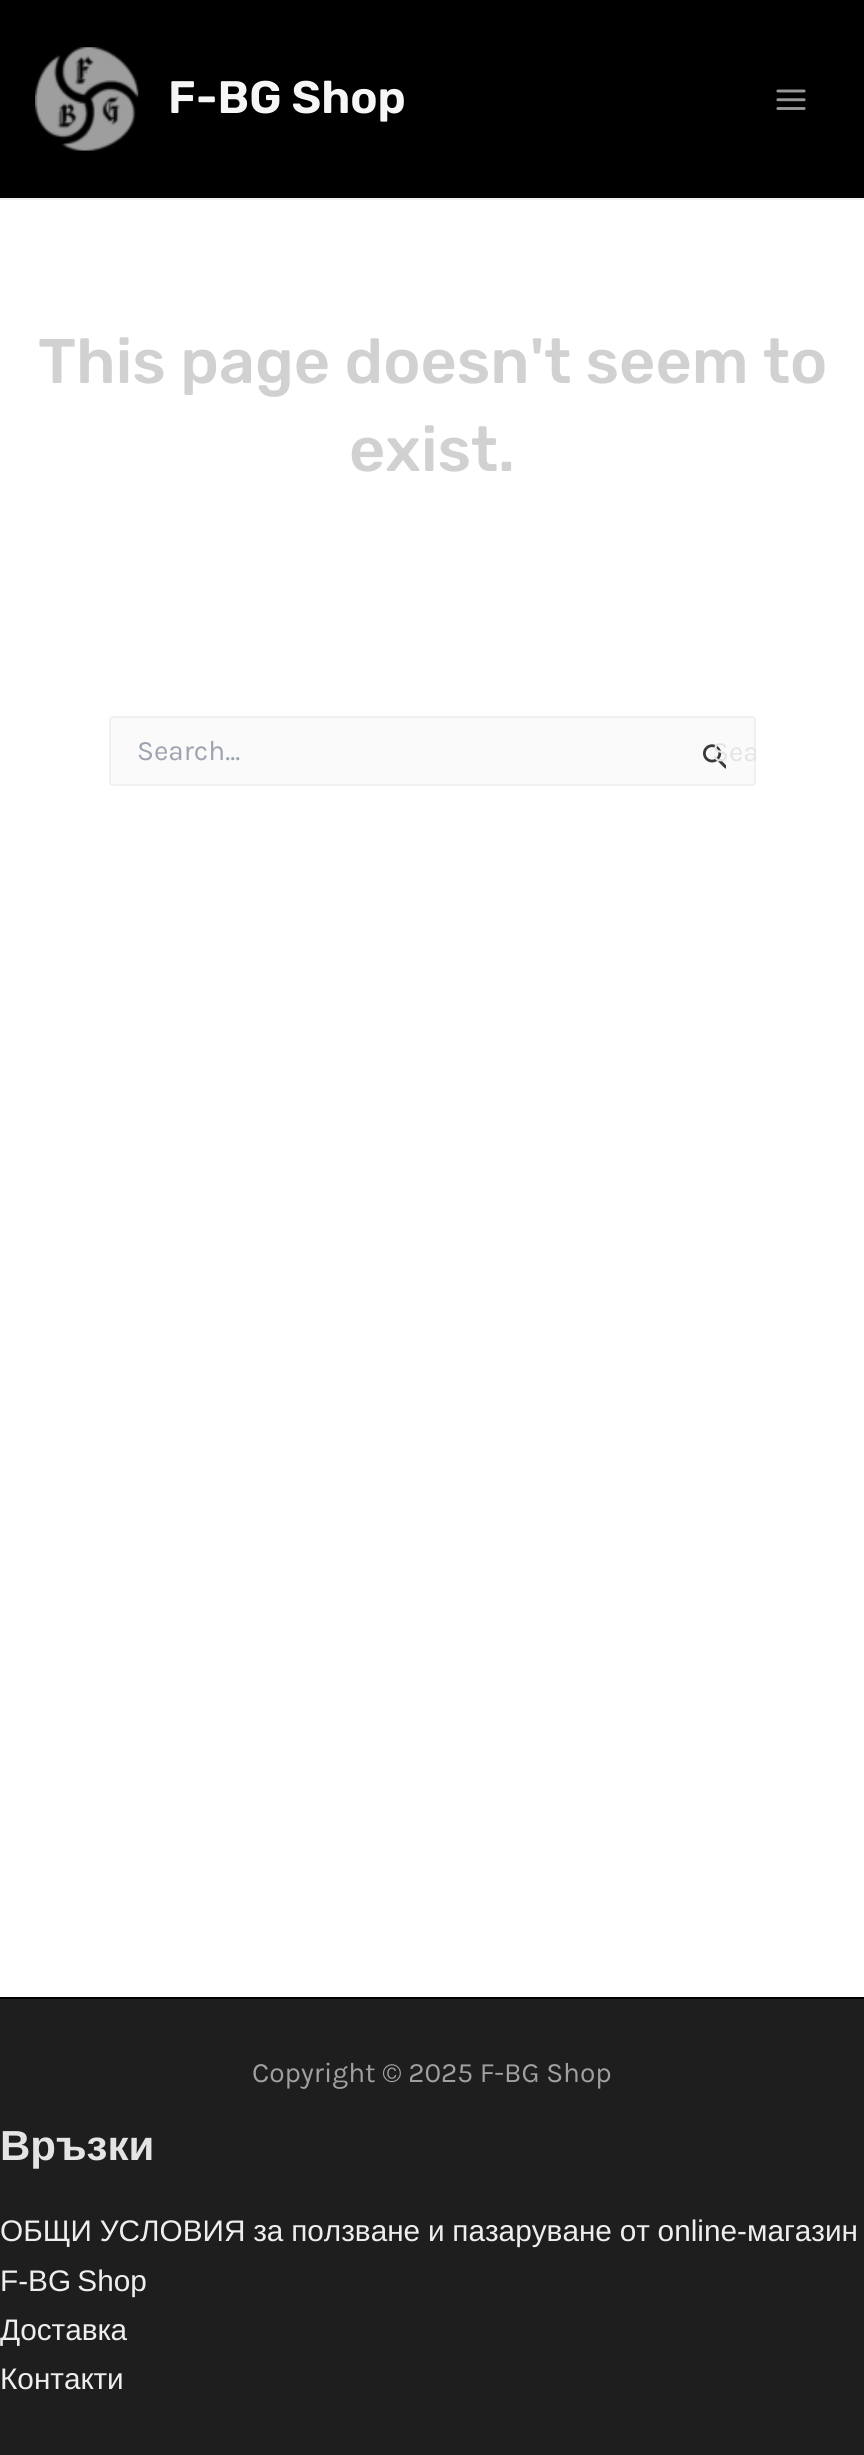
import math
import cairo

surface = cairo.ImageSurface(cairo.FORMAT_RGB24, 864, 2455)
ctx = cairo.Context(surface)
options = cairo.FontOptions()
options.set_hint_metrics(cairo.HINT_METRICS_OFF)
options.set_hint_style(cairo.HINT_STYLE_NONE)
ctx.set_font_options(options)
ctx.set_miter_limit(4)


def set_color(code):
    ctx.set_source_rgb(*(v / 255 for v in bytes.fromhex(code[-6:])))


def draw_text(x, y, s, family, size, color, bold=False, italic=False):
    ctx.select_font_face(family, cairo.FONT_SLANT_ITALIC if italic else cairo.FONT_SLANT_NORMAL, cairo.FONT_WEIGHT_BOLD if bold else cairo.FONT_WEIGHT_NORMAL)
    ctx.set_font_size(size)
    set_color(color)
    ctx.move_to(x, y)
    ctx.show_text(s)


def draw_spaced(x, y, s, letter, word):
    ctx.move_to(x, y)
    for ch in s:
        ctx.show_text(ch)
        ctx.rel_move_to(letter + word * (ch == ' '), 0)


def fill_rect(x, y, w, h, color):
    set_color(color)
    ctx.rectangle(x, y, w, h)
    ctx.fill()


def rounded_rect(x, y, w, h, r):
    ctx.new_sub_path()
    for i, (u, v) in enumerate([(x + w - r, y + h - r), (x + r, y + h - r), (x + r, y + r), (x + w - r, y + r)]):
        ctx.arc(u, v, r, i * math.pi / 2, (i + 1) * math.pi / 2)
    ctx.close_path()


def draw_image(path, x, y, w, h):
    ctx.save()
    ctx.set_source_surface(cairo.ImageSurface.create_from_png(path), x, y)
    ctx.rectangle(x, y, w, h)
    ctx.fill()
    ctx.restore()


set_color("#ffffff")
ctx.paint()
fill_rect(0, 0, 864, 198, "#000000")
fill_rect(0, 198, 864, 2, "#f1f0f0")
draw_image("assets/img1.png", 35, 47, 104, 104)
draw_text(168, 113, "F-BG Shop", "Rubik SemiBold", 45.5, "#f6f6f6")
draw_image("assets/img2.png", 776, 89, 30, 21)
draw_text(38, 383, "This page doesn't seem to", "Rubik Medium", 63, "#d1d1d1")
draw_text(349, 471, "exist.", "Rubik Medium", 63, "#d1d1d1")
set_color("#fafafa")
rounded_rect(110, 717, 645, 68, 3)
ctx.fill_preserve()
set_color("#f1f0f0")
ctx.stroke()
draw_text(137, 760, "Search...", "Karla", 28, "#9ca3af")
draw_image("assets/img3.png", 703, 744, 23, 25)
ctx.save()
rounded_rect(677, 716, 79, 73, 4)
ctx.clip()
draw_text(712, 761, "Sea", "Karla", 28, "#e4e4e4")
ctx.restore()
fill_rect(0, 1997, 864, 2, "#000000")
fill_rect(0, 1999, 864, 456, "#1e1e1e")
draw_text(252, 2082, "Copyright © 2025 F-BG Shop", "Karla", 28, "#a0a0a0")
draw_text(0, 2160, "Връзки", "Liberation Sans", 42, "#e4e4e4", bold=True)
ctx.select_font_face("Liberation Sans")
ctx.set_font_size(29.75)
set_color("#eeeeee")
draw_spaced(0, 2241, "ОБЩИ УСЛОВИЯ за ползване и пазаруване от online-магазин", 0, -0.5)
draw_spaced(0, 2291, "F-BG Shop", 0, -2)
draw_text(0, 2340, "Доставка", "Liberation Sans", 29.75, "#eeeeee")
draw_text(0, 2389, "Контакти", "Liberation Sans", 29.75, "#eeeeee")
surface.write_to_png("output.png")
